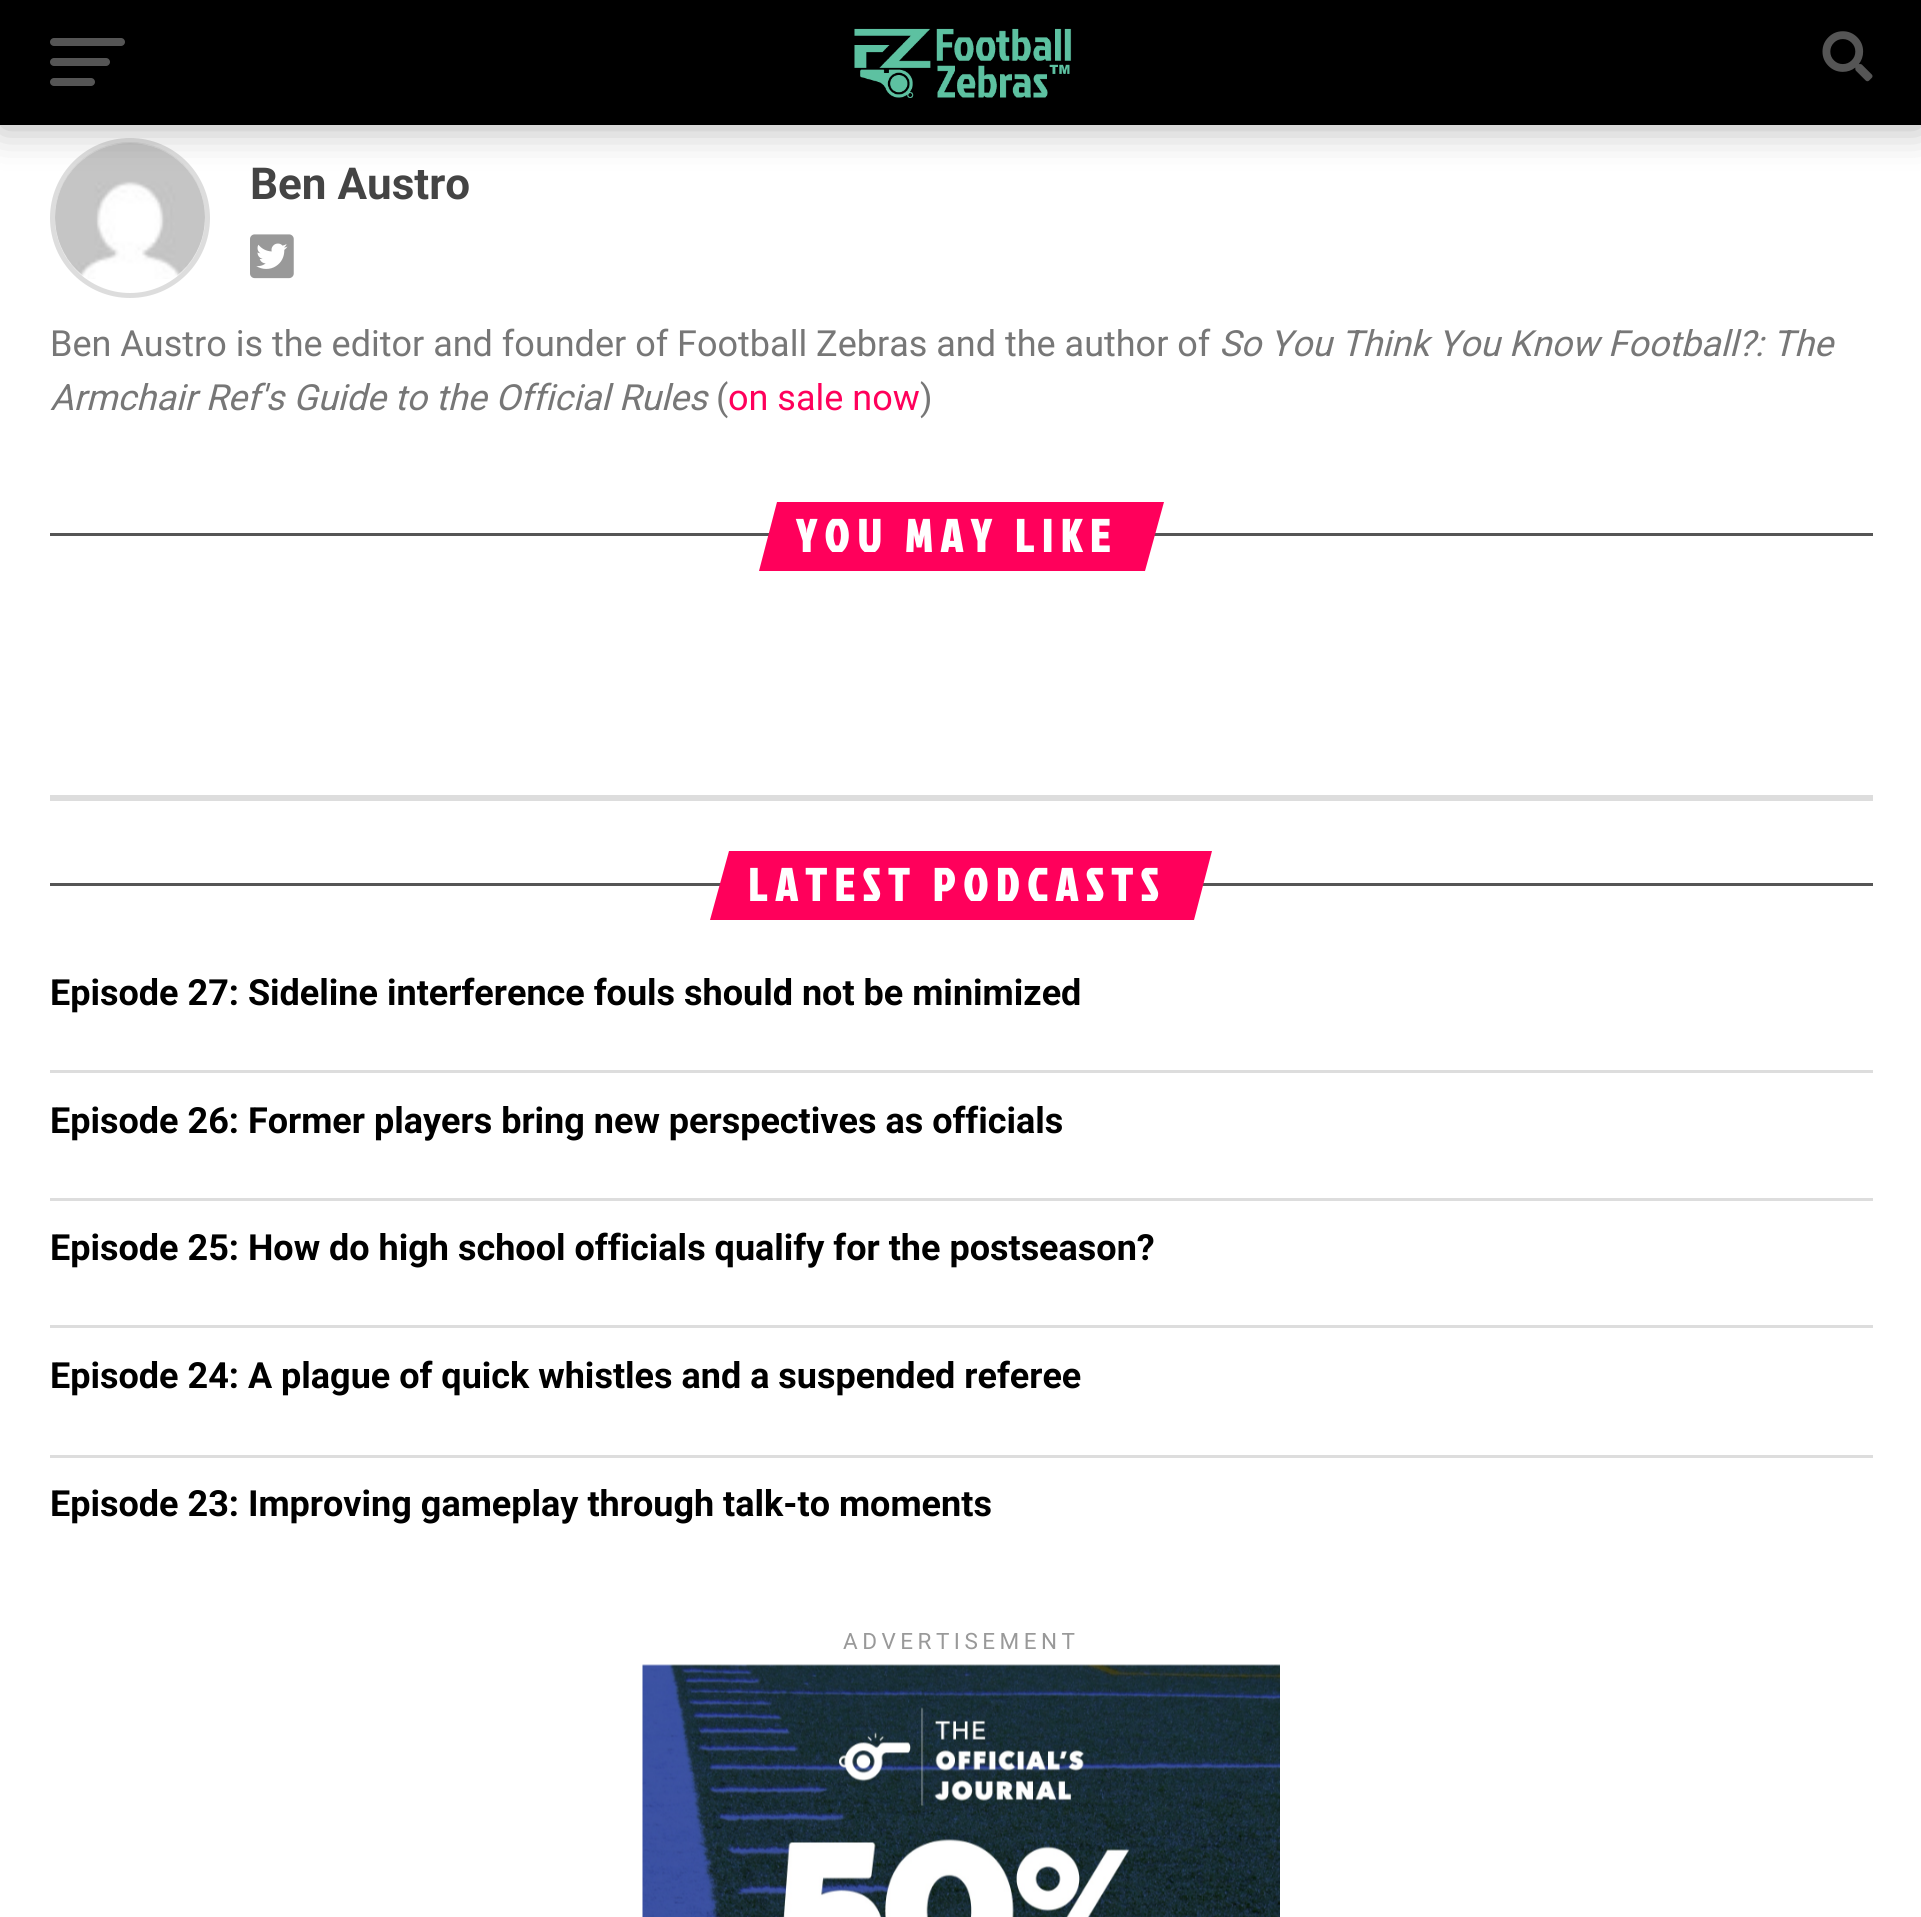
import math
import cairo

surface = cairo.ImageSurface(cairo.FORMAT_RGB24, 1921, 1917)
ctx = cairo.Context(surface)
options = cairo.FontOptions()
options.set_hint_metrics(cairo.HINT_METRICS_OFF)
options.set_hint_style(cairo.HINT_STYLE_NONE)
ctx.set_font_options(options)
ctx.set_miter_limit(4)


def set_color(code):
    ctx.set_source_rgb(*(v / 255 for v in bytes.fromhex(code[-6:])))


def draw_text(x, y, s, family, size, color, bold=False, italic=False):
    ctx.select_font_face(family, cairo.FONT_SLANT_ITALIC if italic else cairo.FONT_SLANT_NORMAL, cairo.FONT_WEIGHT_BOLD if bold else cairo.FONT_WEIGHT_NORMAL)
    ctx.set_font_size(size)
    set_color(color)
    ctx.move_to(x, y)
    ctx.show_text(s)


def draw_spaced(x, y, s, letter, word):
    ctx.move_to(x, y)
    for ch in s:
        ctx.show_text(ch)
        ctx.rel_move_to(letter + word * (ch == ' '), 0)


def fill_rect(x, y, w, h, color):
    set_color(color)
    ctx.rectangle(x, y, w, h)
    ctx.fill()


def rounded_rect(x, y, w, h, r):
    ctx.new_sub_path()
    for i, (u, v) in enumerate([(x + w - r, y + h - r), (x + r, y + h - r), (x + r, y + r), (x + w - r, y + r)]):
        ctx.arc(u, v, r, i * math.pi / 2, (i + 1) * math.pi / 2)
    ctx.close_path()


def draw_shadow(x, y, w, h, r, blur, alpha):
    ctx.push_group_with_content(cairo.CONTENT_ALPHA)
    ctx.set_operator(cairo.OPERATOR_SOURCE)
    for i in range(15, -16, -2):
        e = blur * i / 6
        if min(w, h) + 2 * e > 0:
            ctx.set_source_rgba(0, 0, 0, alpha * math.erfc((i - 1) / 8.5) / 2)
            rounded_rect(x - e, y - e, w + 2 * e, h + 2 * e, max(0, min(r + e + blur * .6, min(w, h) / 2 + e)))
            ctx.fill()
    ctx.mask(ctx.pop_group())


def draw_image(path, x, y, w, h):
    ctx.save()
    ctx.set_source_surface(cairo.ImageSurface.create_from_png(path), x, y)
    ctx.rectangle(x, y, w, h)
    ctx.fill()
    ctx.restore()


set_color("#ffffff")
ctx.paint()
ctx.arc(130, 218, 77.5, 0, 2 * math.pi)
set_color("#dddddd")
ctx.set_line_width(5)
ctx.stroke()
draw_image("assets/img3.png", 55, 142, 150, 137)
set_color("#000000")
draw_shadow(0, 3, 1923, 125, 0, 20, 0.3)
fill_rect(0, 0, 1921, 125, "#000000")
set_color("#555555")
rounded_rect(50, 38, 75, 8, 4)
ctx.fill()
rounded_rect(50, 58, 60, 8, 4)
ctx.fill()
rounded_rect(50, 78, 45, 8, 4)
ctx.fill()
draw_image("assets/img1.png", 854, 28, 218, 70)
draw_image("assets/img2.png", 1822, 31, 51, 51)
fill_rect(50, 795, 1823, 6, "#dddddd")
draw_text(250, 199, "Ben Austro", "Roboto", 44, "#444444", bold=True)
draw_image("assets/img4.png", 250, 234, 44, 45)
draw_text(50, 356, "Ben Austro is the editor and founder of Football Zebras and the author of", "Roboto", 36, "#777777")
draw_text(1219, 356, "So You Think You Know Football?: The", "Roboto", 36, "#777777", italic=True)
draw_text(50, 410, "Armchair Ref's Guide to the Official Rules", "Roboto", 36, "#777777", italic=True)
draw_text(716, 410, "(", "Roboto", 36, "#777777")
draw_text(728, 410, "on sale now", "Roboto", 36, "#ff005b")
draw_text(920, 410, ")", "Roboto", 36, "#777777")
fill_rect(50, 533, 1823, 3, "#555555")
set_color("#ff005b")
ctx.new_path()
ctx.move_to(777, 502)
ctx.line_to(1164, 502)
ctx.line_to(1145, 571)
ctx.line_to(759, 571)
ctx.close_path()
ctx.fill()
ctx.select_font_face("Jockey One", cairo.FONT_SLANT_NORMAL, cairo.FONT_WEIGHT_BOLD)
ctx.set_font_size(45.5)
set_color("#ffffff")
draw_spaced(796, 552, "YOU MAY LIKE", 8.2, 0)
fill_rect(50, 883, 1823, 3, "#555555")
set_color("#ff005b")
ctx.new_path()
ctx.move_to(729, 851)
ctx.line_to(1212, 851)
ctx.line_to(1194, 920)
ctx.line_to(710, 920)
ctx.close_path()
ctx.fill()
set_color("#ffffff")
draw_spaced(748, 901, "LATEST PODCASTS", 8.1, 0)
draw_text(50, 1005, "Episode 27: Sideline interference fouls should not be minimized", "Roboto", 36, "#000000", bold=True)
fill_rect(50, 1070, 1823, 3, "#dddddd")
draw_text(50, 1133, "Episode 26: Former players bring new perspectives as officials", "Roboto", 36, "#000000", bold=True)
fill_rect(50, 1198, 1823, 3, "#dddddd")
draw_text(50, 1260, "Episode 25: How do high school officials qualify for the postseason?", "Roboto", 36, "#000000", bold=True)
fill_rect(50, 1325, 1823, 3, "#dddddd")
draw_text(50, 1388, "Episode 24: A plague of quick whistles and a suspended referee", "Roboto", 36, "#000000", bold=True)
fill_rect(50, 1455, 1823, 3, "#dddddd")
draw_text(50, 1516, "Episode 23: Improving gameplay through talk-to moments", "Roboto", 36, "#000000", bold=True)
ctx.select_font_face("Roboto")
ctx.set_font_size(22.5)
set_color("#999999")
draw_spaced(843, 1649, "ADVERTISEMENT", 4.5, 0)
draw_image("assets/img5.png", 642, 1664, 638, 253)
surface.write_to_png("output.png")
